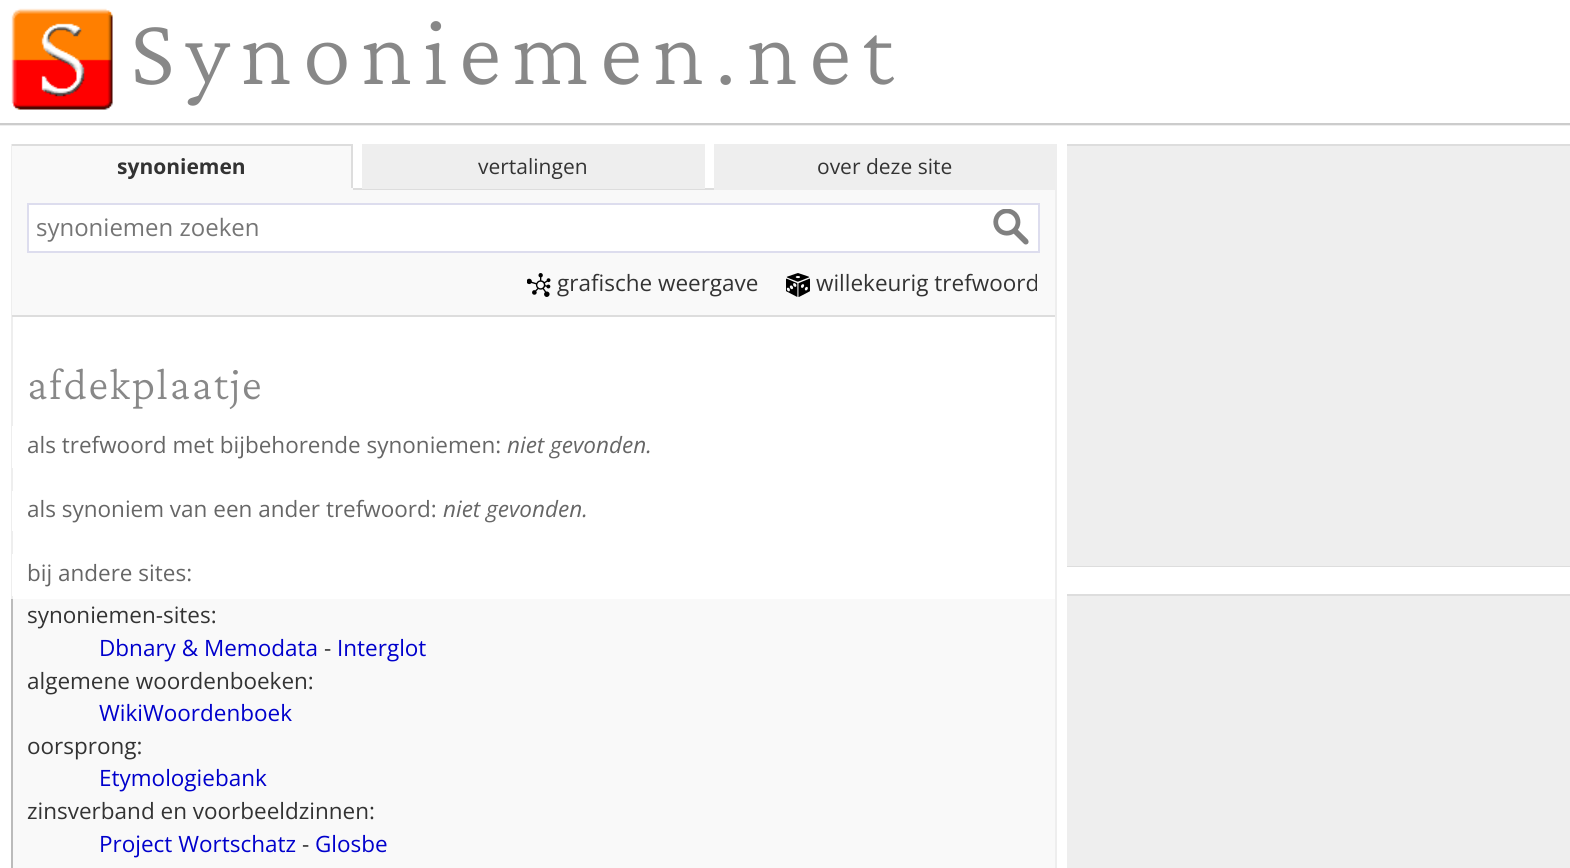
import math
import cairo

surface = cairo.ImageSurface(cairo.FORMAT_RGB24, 1570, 868)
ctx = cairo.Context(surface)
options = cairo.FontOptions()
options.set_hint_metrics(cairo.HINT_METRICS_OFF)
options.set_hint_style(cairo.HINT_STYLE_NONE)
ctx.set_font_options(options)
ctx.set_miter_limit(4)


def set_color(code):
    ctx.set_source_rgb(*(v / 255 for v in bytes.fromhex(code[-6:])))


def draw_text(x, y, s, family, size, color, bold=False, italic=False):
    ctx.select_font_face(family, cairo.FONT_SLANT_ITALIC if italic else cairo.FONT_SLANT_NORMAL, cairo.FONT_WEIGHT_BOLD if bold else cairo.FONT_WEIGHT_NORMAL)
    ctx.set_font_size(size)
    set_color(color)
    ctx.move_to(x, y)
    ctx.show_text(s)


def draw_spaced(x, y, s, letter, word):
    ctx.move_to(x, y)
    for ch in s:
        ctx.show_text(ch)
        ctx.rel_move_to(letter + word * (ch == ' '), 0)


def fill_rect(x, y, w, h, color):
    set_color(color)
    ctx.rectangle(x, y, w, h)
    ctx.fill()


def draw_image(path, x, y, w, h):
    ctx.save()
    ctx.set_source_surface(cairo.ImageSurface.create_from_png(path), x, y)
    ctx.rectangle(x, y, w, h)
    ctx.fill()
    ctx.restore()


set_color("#ffffff")
ctx.paint()
draw_image("assets/img1.png", 11, 8, 102, 102)
ctx.select_font_face("Crimson Pro Light")
ctx.set_font_size(97.5)
set_color("#888888")
draw_spaced(130, 84, "Synoniemen.net", 10.75, 0)
fill_rect(0, 125, 1570, 1, "#eeeeee")
fill_rect(0, 123, 1570, 2, "#cccccc")
fill_rect(1055, 144, 2, 724, "#eeeeee")
fill_rect(11, 144, 2, 455, "#eeeeee")
fill_rect(12, 146, 339, 42, "#f9f9f9")
fill_rect(12, 144, 341, 2, "#dddddd")
fill_rect(351, 144, 2, 45, "#dddddd")
fill_rect(12, 188, 341, 2, "#f9f9f9")
draw_text(117, 174, "synoniemen", "Open Sans", 21, "#333333", bold=True)
fill_rect(353, 188, 361, 2, "#dddddd")
fill_rect(362, 144, 343, 45, "#eeeeee")
draw_text(478, 174, "vertalingen", "Open Sans", 21, "#333333")
fill_rect(716, 146, 339, 42, "#eeeeee")
fill_rect(714, 144, 341, 2, "#eeeeee")
fill_rect(714, 188, 341, 2, "#eeeeee")
fill_rect(714, 144, 2, 45, "#eeeeee")
draw_text(817, 174, "over deze site", "Open Sans", 21, "#333333")
fill_rect(12, 190, 1043, 125, "#f9f9f9")
fill_rect(12, 315, 1043, 2, "#dddddd")
fill_rect(29, 205, 1009, 46, "#ffffff")
draw_image("assets/img2.png", 993, 209, 36, 36)
fill_rect(27, 203, 1013, 2, "#ddddee")
fill_rect(1038, 203, 2, 49, "#ddddee")
fill_rect(27, 251, 1013, 2, "#ddddee")
fill_rect(27, 203, 2, 49, "#ddddee")
draw_text(36, 236, "synoniemen zoeken", "Open Sans", 24, "#757575")
draw_image("assets/img3.png", 527, 273, 24, 24)
draw_text(557, 291, "grafische weergave", "Open Sans", 22.5, "#333333")
draw_image("assets/img4.png", 786, 273, 24, 24)
draw_text(816, 291, "willekeurig trefwoord", "Open Sans", 22.5, "#333333")
ctx.select_font_face("Crimson Pro Light")
ctx.set_font_size(45)
set_color("#888888")
draw_spaced(27, 399, "afdekplaatje", 1.5, 0)
fill_rect(12, 426, 1, 42, "#ffffff")
draw_text(27, 453, "als trefwoord met bijbehorende synoniemen:", "Open Sans", 22.5, "#666666")
draw_text(507, 453, "niet gevonden.", "Open Sans", 22.5, "#666666", italic=True)
fill_rect(12, 491, 1, 40, "#ffffff")
draw_text(27, 517, "als synoniem van een ander trefwoord:", "Open Sans", 22.5, "#666666")
draw_text(443, 517, "niet gevonden.", "Open Sans", 22.5, "#666666", italic=True)
fill_rect(12, 554, 1, 42, "#ffffff")
draw_text(27, 581, "bij andere sites:", "Open Sans", 22.5, "#666666")
fill_rect(13, 599, 1042, 269, "#f9f9f9")
fill_rect(11, 599, 2, 269, "#bbbbbb")
draw_text(27, 623, "synoniemen-sites:", "Open Sans", 22.5, "#333333")
draw_text(99, 656, "Dbnary & Memodata", "Open Sans", 22.5, "#0000cc")
draw_text(324, 656, "-", "Open Sans", 22.5, "#333333")
draw_text(337, 656, "Interglot", "Open Sans", 22.5, "#0000cc")
draw_text(27, 689, "algemene woordenboeken:", "Open Sans", 22.5, "#333333")
draw_text(99, 721, "WikiWoordenboek", "Open Sans", 22.5, "#0000cc")
draw_text(27, 754, "oorsprong:", "Open Sans", 22.5, "#333333")
draw_text(99, 786, "Etymologiebank", "Open Sans", 22.5, "#0000cc")
draw_text(27, 819, "zinsverband en voorbeeldzinnen:", "Open Sans", 22.5, "#333333")
draw_text(99, 852, "Project Wortschatz", "Open Sans", 22.5, "#0000cc")
draw_text(302, 852, "-", "Open Sans", 22.5, "#333333")
draw_text(315, 852, "Glosbe", "Open Sans", 22.5, "#0000cc")
fill_rect(1067, 146, 503, 420, "#eeeeee")
fill_rect(1067, 144, 503, 2, "#dddddd")
fill_rect(1067, 566, 503, 1, "#dddddd")
fill_rect(1067, 596, 503, 272, "#eeeeee")
fill_rect(1067, 594, 503, 2, "#dddddd")
surface.write_to_png("output.png")
